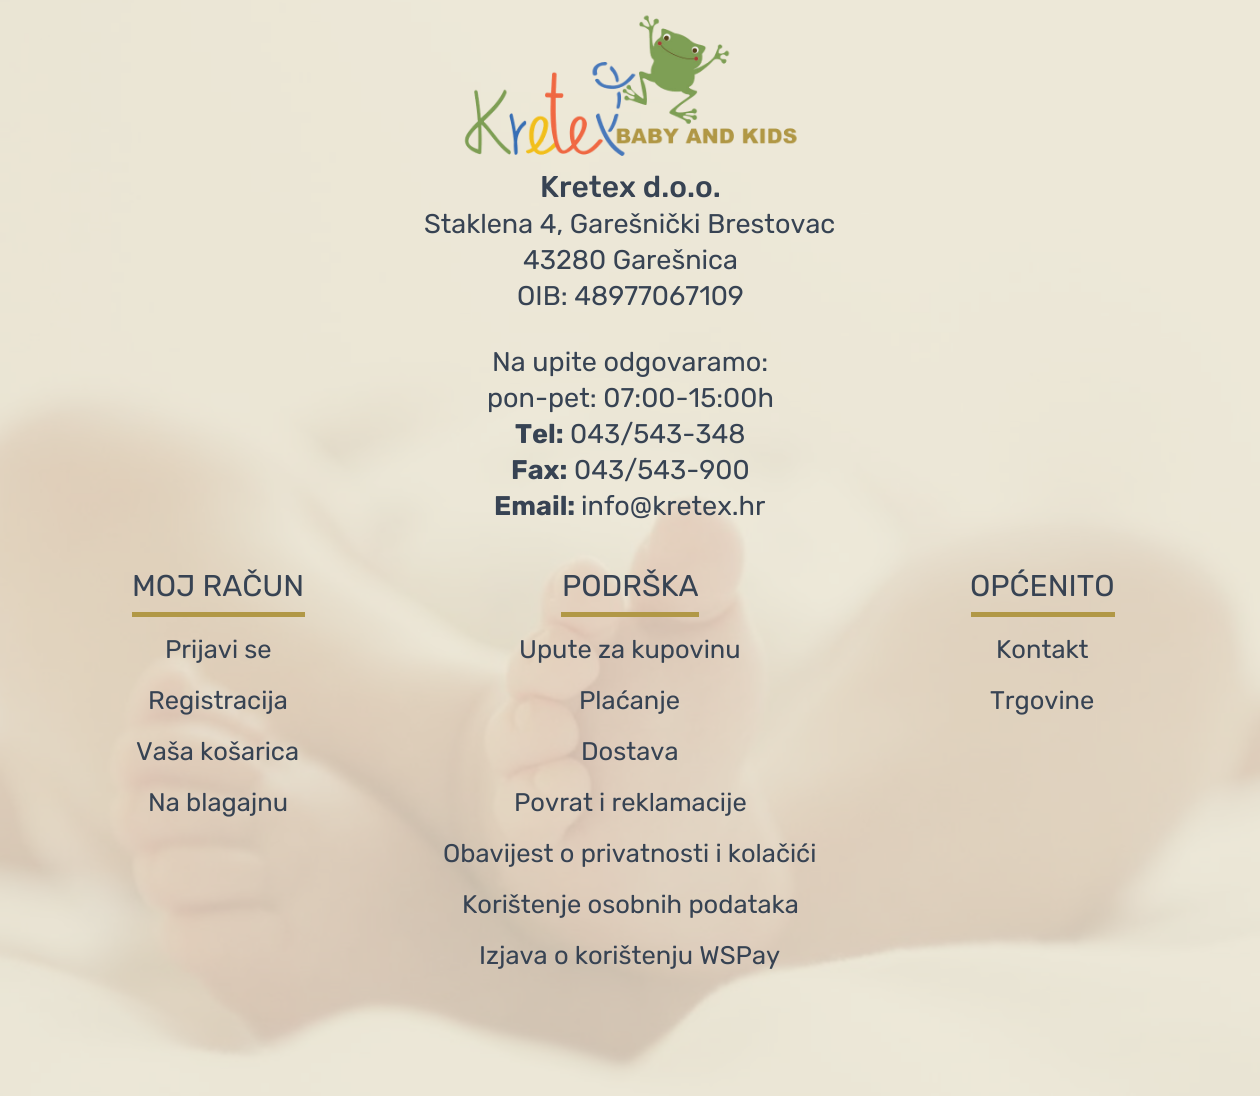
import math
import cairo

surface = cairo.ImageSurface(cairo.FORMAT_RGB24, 1260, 1096)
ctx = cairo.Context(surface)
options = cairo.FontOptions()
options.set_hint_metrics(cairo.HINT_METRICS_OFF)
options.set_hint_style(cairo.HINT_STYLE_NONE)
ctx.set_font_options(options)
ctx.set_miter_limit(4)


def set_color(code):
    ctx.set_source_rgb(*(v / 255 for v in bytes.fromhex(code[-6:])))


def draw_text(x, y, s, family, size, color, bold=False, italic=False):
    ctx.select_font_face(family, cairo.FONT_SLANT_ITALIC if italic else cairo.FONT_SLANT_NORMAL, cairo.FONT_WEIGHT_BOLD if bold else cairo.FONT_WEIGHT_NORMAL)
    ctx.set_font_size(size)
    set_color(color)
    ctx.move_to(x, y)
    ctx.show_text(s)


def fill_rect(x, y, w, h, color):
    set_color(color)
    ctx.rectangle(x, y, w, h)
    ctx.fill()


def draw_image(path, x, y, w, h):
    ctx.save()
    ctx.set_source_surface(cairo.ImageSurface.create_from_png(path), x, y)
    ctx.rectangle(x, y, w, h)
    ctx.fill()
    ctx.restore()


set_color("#ffffff")
ctx.paint()
draw_image("assets/img1.png", 0, 0, 1260, 1096)
draw_image("assets/img2.png", 464, 15, 333, 141)
draw_text(540, 197, "Kretex d.o.o.", "Rubik Medium", 30, "#374353")
draw_text(424, 233, "Staklena 4, Garešnički Brestovac", "Rubik", 27, "#374353")
draw_text(523, 269, "43280 Garešnica", "Rubik", 27, "#374353")
draw_text(517, 305, "OIB: 48977067109", "Rubik", 27, "#374353")
draw_text(492, 371, "Na upite odgovaramo:", "Rubik", 27, "#374353")
draw_text(487, 407, "pon-pet: 07:00-15:00h", "Rubik", 27, "#374353")
draw_text(515, 443, "Tel:", "Rubik", 27, "#374353", bold=True)
draw_text(570, 443, "043/543-348", "Rubik", 27, "#374353")
draw_text(511, 479, "Fax:", "Rubik", 27, "#374353", bold=True)
draw_text(574, 479, "043/543-900", "Rubik", 27, "#374353")
draw_text(494, 515, "Email:", "Rubik", 27, "#374353", bold=True)
draw_text(581, 515, "info@kretex.hr", "Rubik", 27, "#374353")
fill_rect(132, 612, 173, 5, "#b19846")
draw_text(132, 596, "MOJ RAČUN", "Rubik", 30, "#374353")
draw_text(165, 658, "Prijavi se", "Rubik", 25.5, "#374353")
draw_text(148, 709, "Registracija", "Rubik", 25.5, "#374353")
draw_text(136, 760, "Vaša košarica", "Rubik", 25.5, "#374353")
draw_text(148, 811, "Na blagajnu", "Rubik", 25.5, "#374353")
fill_rect(561, 612, 138, 5, "#b19846")
draw_text(562, 596, "PODRŠKA", "Rubik", 30, "#374353")
draw_text(519, 658, "Upute za kupovinu", "Rubik", 25.5, "#374353")
draw_text(579, 709, "Plaćanje", "Rubik", 25.5, "#374353")
draw_text(581, 760, "Dostava", "Rubik", 25.5, "#374353")
draw_text(514, 811, "Povrat i reklamacije", "Rubik", 25.5, "#374353")
draw_text(443, 862, "Obavijest o privatnosti i kolačići", "Rubik", 25.5, "#374353")
draw_text(462, 913, "Korištenje osobnih podataka", "Rubik", 25.5, "#374353")
draw_text(479, 964, "Izjava o korištenju WSPay", "Rubik", 25.5, "#374353")
fill_rect(971, 612, 144, 5, "#b19846")
draw_text(970, 596, "OPĆENITO", "Rubik", 30, "#374353")
draw_text(996, 658, "Kontakt", "Rubik", 25.5, "#374353")
draw_text(990, 709, "Trgovine", "Rubik", 25.5, "#374353")
surface.write_to_png("output.png")
